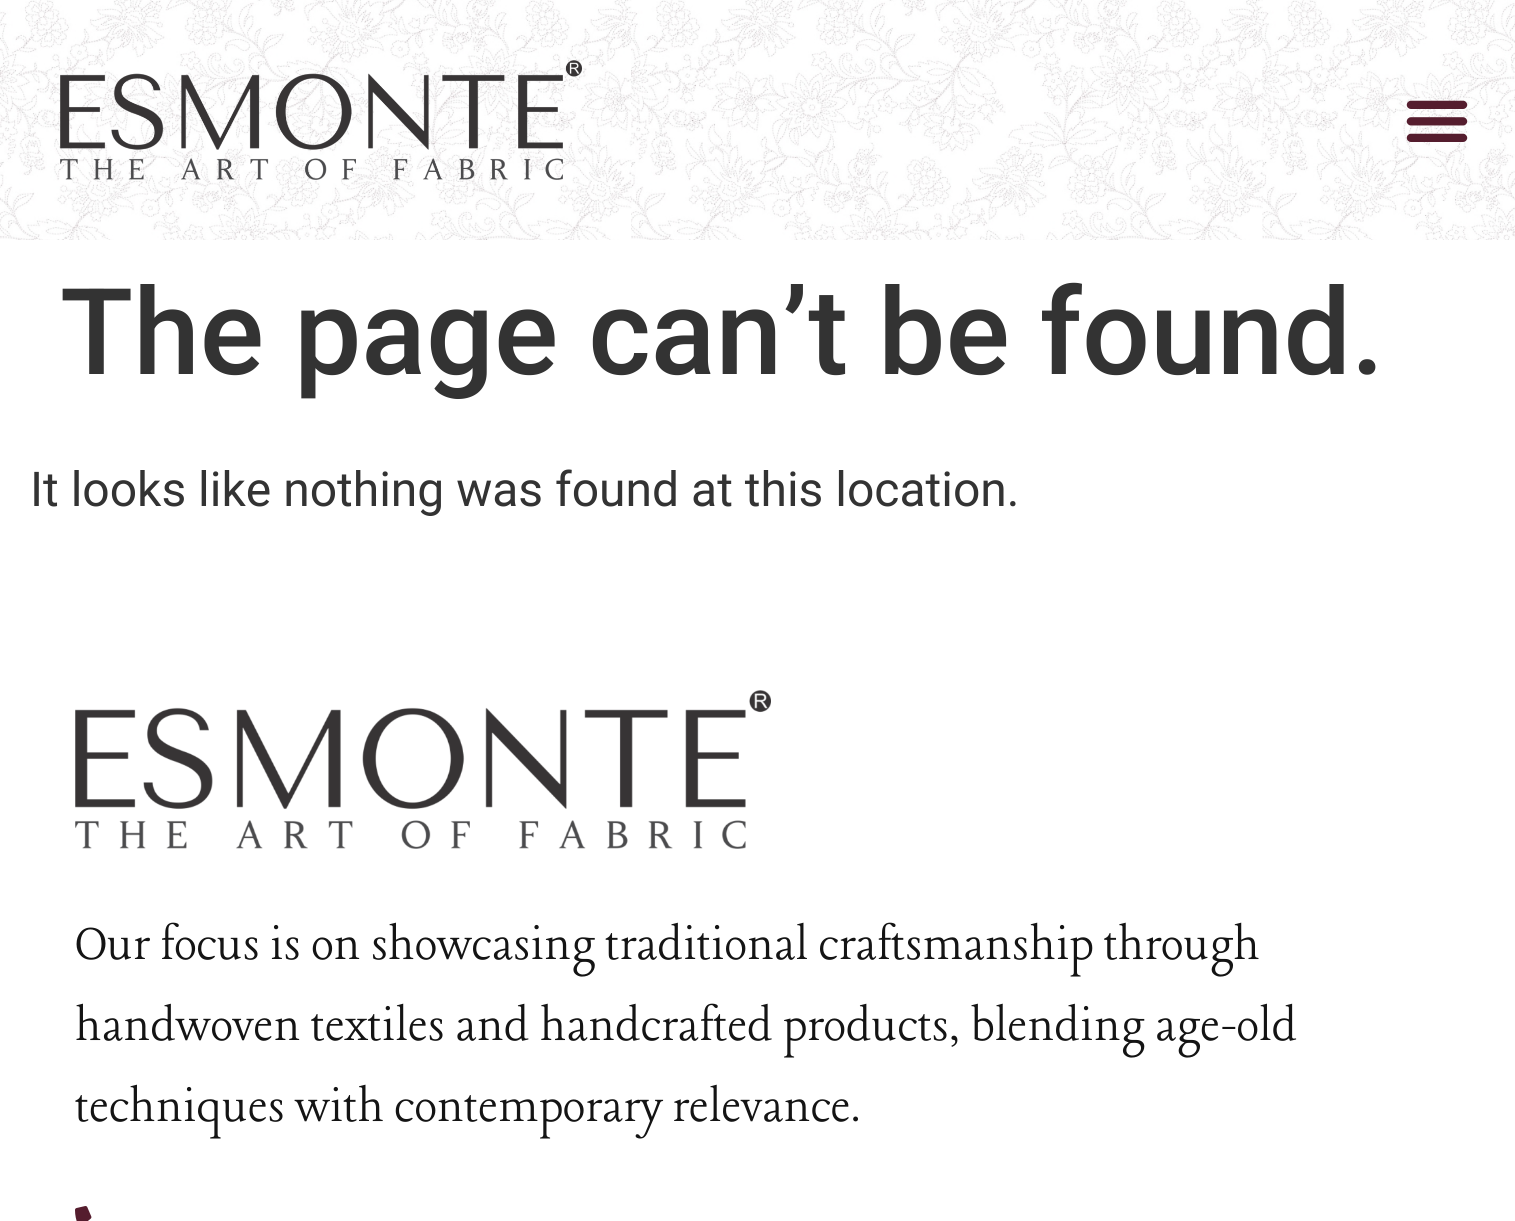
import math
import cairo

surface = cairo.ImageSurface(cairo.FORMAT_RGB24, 1515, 1221)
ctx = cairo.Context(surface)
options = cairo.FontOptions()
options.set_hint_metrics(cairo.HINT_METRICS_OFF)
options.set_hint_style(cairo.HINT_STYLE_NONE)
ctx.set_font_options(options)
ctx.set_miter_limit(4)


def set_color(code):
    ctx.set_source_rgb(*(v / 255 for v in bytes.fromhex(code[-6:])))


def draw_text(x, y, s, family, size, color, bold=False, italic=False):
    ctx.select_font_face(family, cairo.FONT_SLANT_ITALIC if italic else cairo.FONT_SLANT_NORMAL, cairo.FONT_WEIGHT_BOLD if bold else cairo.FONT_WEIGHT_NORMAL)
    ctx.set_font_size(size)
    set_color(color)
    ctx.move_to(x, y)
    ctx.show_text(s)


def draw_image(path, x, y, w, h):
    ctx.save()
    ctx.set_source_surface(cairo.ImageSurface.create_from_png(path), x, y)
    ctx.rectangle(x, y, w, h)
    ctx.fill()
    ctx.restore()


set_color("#ffffff")
ctx.paint()
draw_image("assets/img1.png", 0, 0, 1515, 240)
draw_image("assets/img2.png", 60, 60, 522, 120)
draw_image("assets/img3.png", 1406, 100, 62, 42)
draw_text(60, 374, "The page can’t be found.", "Roboto Medium", 120, "#333333")
draw_text(30, 506, "It looks like nothing was found at this location.", "Roboto", 48, "#333333")
draw_image("assets/img4.png", 75, 690, 696, 159)
draw_text(75, 959, "Our focus is on showcasing traditional craftsmanship through", "Lancelot", 54, "#141414")
draw_text(75, 1040, "handwoven textiles and handcrafted products, blending age-old", "Lancelot", 54, "#141414")
draw_text(75, 1121, "techniques with contemporary relevance.", "Lancelot", 54, "#141414")
draw_image("assets/img5.png", 75, 1206, 17, 15)
surface.write_to_png("output.png")
